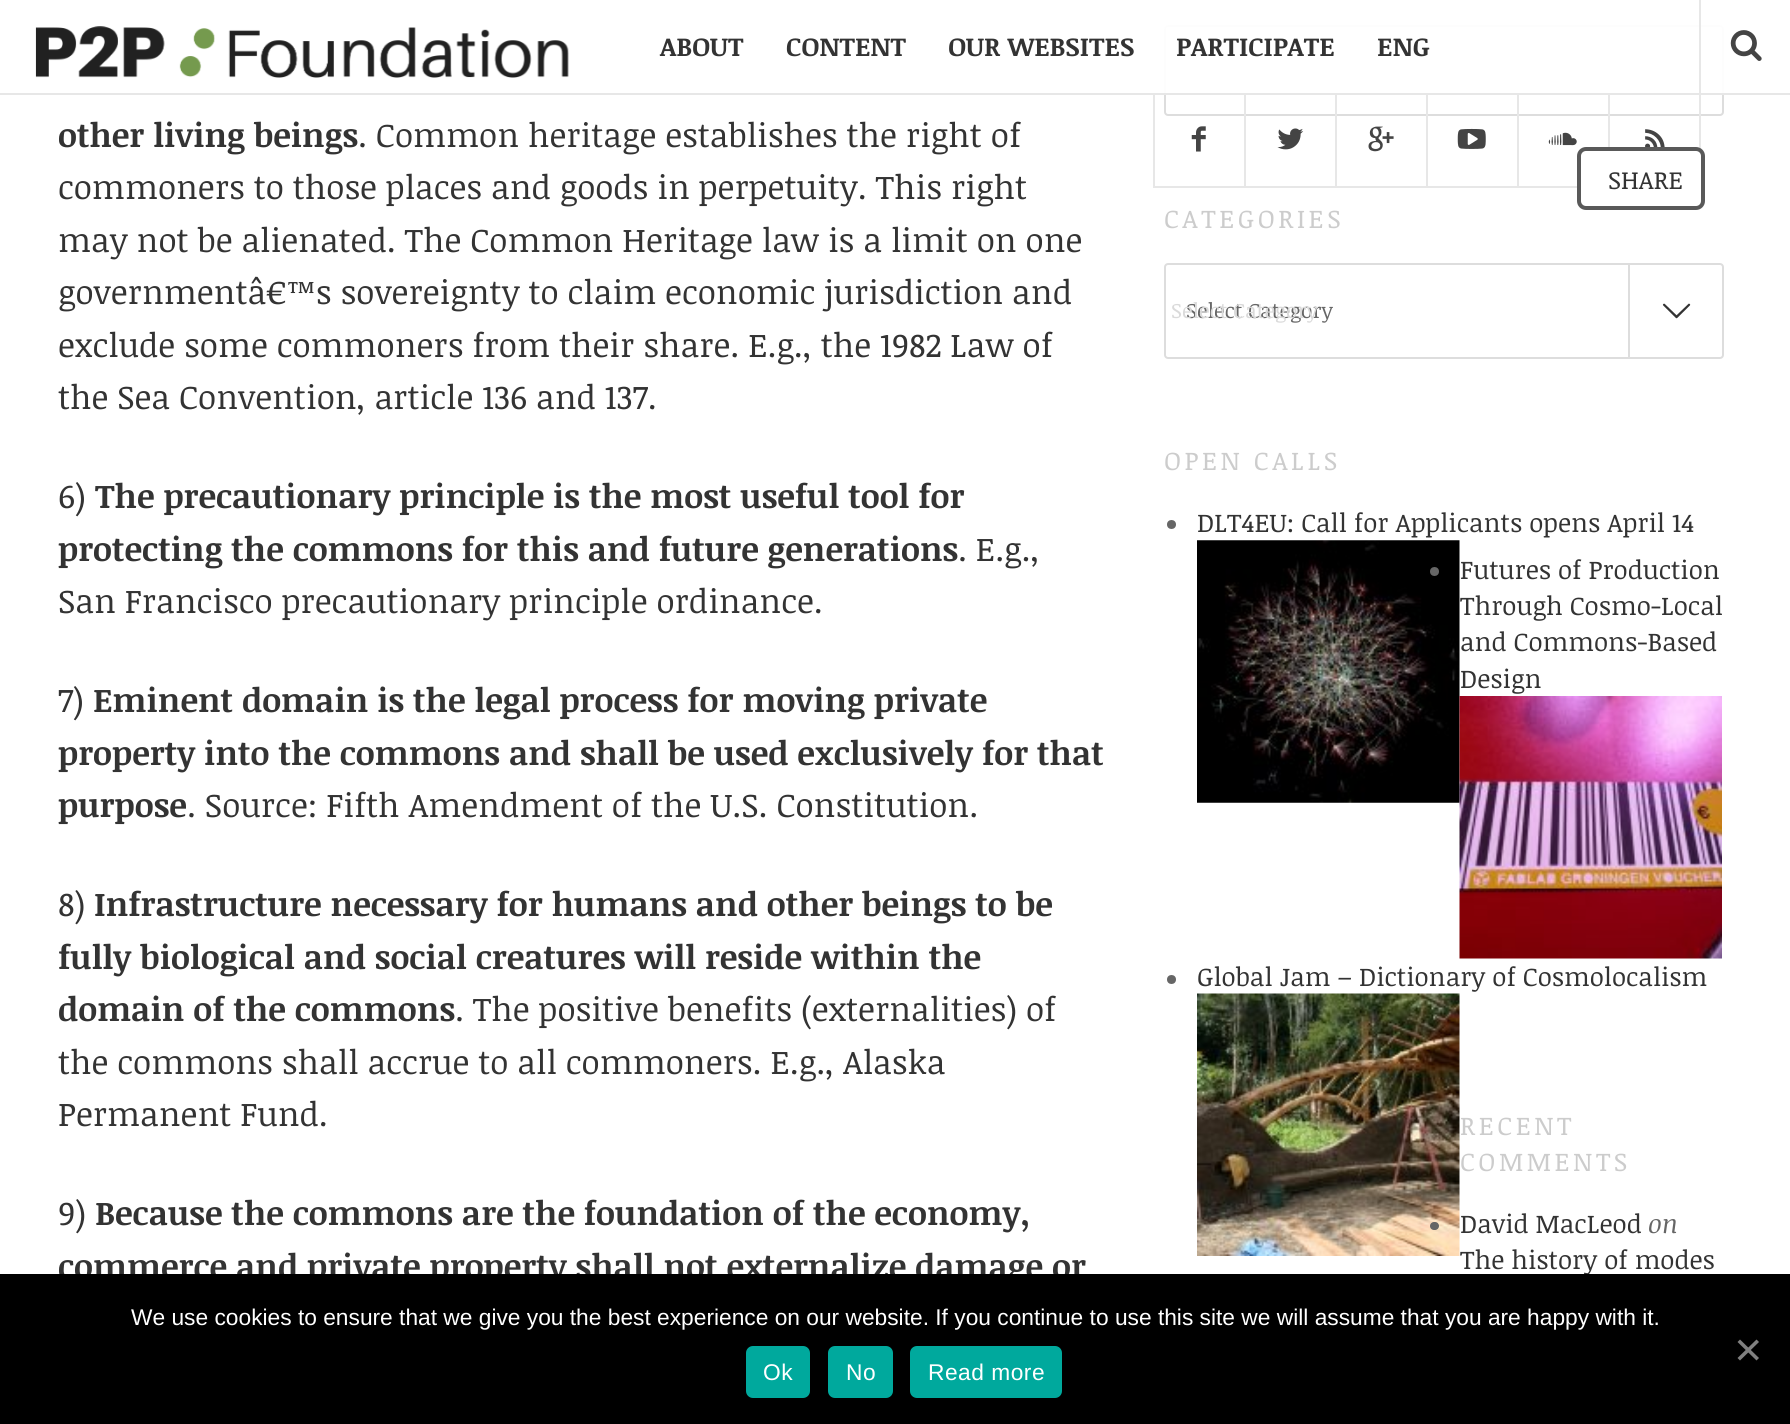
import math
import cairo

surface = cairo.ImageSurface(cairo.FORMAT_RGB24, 1790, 1424)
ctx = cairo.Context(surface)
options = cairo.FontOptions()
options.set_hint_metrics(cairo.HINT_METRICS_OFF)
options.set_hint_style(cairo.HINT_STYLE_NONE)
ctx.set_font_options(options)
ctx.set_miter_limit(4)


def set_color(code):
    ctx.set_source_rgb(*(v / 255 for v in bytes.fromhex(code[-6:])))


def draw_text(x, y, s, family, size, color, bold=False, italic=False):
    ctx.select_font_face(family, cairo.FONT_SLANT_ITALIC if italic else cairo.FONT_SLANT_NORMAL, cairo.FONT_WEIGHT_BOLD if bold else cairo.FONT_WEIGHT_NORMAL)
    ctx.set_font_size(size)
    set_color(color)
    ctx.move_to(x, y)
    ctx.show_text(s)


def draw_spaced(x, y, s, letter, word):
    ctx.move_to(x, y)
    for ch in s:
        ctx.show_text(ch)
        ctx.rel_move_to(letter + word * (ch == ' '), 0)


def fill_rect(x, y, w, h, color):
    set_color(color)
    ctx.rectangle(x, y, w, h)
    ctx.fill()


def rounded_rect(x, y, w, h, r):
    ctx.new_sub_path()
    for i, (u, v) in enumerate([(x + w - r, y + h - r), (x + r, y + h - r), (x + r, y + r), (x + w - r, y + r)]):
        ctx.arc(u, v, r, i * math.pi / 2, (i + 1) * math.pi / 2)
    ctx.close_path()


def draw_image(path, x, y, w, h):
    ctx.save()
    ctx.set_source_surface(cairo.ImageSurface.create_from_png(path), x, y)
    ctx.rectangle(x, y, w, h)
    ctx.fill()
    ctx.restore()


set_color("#ffffff")
ctx.paint()
rounded_rect(1165, 26, 558, 89, 3)
set_color("#dddddd")
ctx.stroke()
ctx.set_source_rgba(1, 1, 1, 0.95)
ctx.rectangle(1164, 25, 560, 68)
ctx.fill()
fill_rect(0, 93, 1790, 2, "#e7e7e7")
draw_image("assets/img1.png", 35, 26, 534, 52)
fill_rect(1244, 93, 2, 94, "#e7e7e7")
fill_rect(1153, 186, 93, 2, "#e7e7e7")
fill_rect(1153, 93, 2, 94, "#e7e7e7")
draw_image("assets/img2.png", 1191, 126, 15, 26)
fill_rect(1335, 93, 2, 94, "#e7e7e7")
fill_rect(1244, 186, 93, 2, "#e7e7e7")
draw_image("assets/img3.png", 1277, 128, 27, 22)
fill_rect(1426, 93, 2, 94, "#e7e7e7")
fill_rect(1335, 186, 93, 2, "#e7e7e7")
draw_image("assets/img4.png", 1368, 126, 26, 26)
fill_rect(1517, 93, 2, 94, "#e7e7e7")
fill_rect(1426, 186, 151, 2, "#e7e7e7")
draw_image("assets/img5.png", 1457, 128, 29, 21)
fill_rect(1608, 93, 2, 54, "#e7e7e7")
draw_image("assets/img6.png", 1548, 132, 29, 14)
fill_rect(1699, 0, 2, 149, "#e7e7e7")
draw_image("assets/img7.png", 1645, 129, 20, 18)
draw_image("assets/img8.png", 1730, 30, 32, 31)
draw_text(660, 56, "ABOUT", "Noticia Text", 26.25, "#333333", bold=True)
draw_text(786, 56, "CONTENT", "Noticia Text", 26.25, "#333333", bold=True)
draw_text(948, 56, "OUR WEBSITES", "Noticia Text", 26.25, "#333333", bold=True)
draw_text(1176, 56, "PARTICIPATE", "Noticia Text", 26.25, "#333333", bold=True)
draw_text(1377, 56, "ENG", "Noticia Text", 26.25, "#333333", bold=True)
draw_text(58, 147, "other living beings", "Noticia Text", 33.25, "#333333", bold=True)
draw_text(358, 147, ". Common heritage establishes the right of", "Noticia Text", 33.25, "#333333")
draw_text(58, 199, "commoners to those places and goods in perpetuity. This right", "Noticia Text", 33.25, "#333333")
draw_text(58, 252, "may not be alienated. The Common Heritage law is a limit on one", "Noticia Text", 33.25, "#333333")
draw_text(58, 304, "governmentâ€™s sovereignty to claim economic jurisdiction and", "Noticia Text", 33.25, "#333333")
draw_text(58, 357, "exclude some commoners from their share. E.g., the 1982 Law of", "Noticia Text", 33.25, "#333333")
draw_text(58, 409, "the Sea Convention, article 136 and 137.", "Noticia Text", 33.25, "#333333")
draw_text(58, 508, "6)", "Noticia Text", 33.25, "#333333")
draw_text(95, 508, "The precautionary principle is the most useful tool for", "Noticia Text", 33.25, "#333333", bold=True)
draw_text(58, 561, "protecting the commons for this and future generations", "Noticia Text", 33.25, "#333333", bold=True)
draw_text(958, 561, ". E.g.,", "Noticia Text", 33.25, "#333333")
draw_text(58, 613, "San Francisco precautionary principle ordinance.", "Noticia Text", 33.25, "#333333")
draw_text(58, 712, "7)", "Noticia Text", 33.25, "#333333")
draw_text(93, 712, "Eminent domain is the legal process for moving private", "Noticia Text", 33.25, "#333333", bold=True)
draw_text(58, 765, "property into the commons and shall be used exclusively for that", "Noticia Text", 33.25, "#333333", bold=True)
draw_text(58, 817, "purpose", "Noticia Text", 33.25, "#333333", bold=True)
draw_text(187, 817, ". Source: Fifth Amendment of the U.S. Constitution.", "Noticia Text", 33.25, "#333333")
draw_text(58, 916, "8)", "Noticia Text", 33.25, "#333333")
draw_text(94, 916, "Infrastructure necessary for humans and other beings to be", "Noticia Text", 33.25, "#333333", bold=True)
draw_text(58, 969, "fully biological and social creatures will reside within the", "Noticia Text", 33.25, "#333333", bold=True)
draw_text(58, 1021, "domain of the commons", "Noticia Text", 33.25, "#333333", bold=True)
draw_text(455, 1021, ". The positive benefits (externalities) of", "Noticia Text", 33.25, "#333333")
draw_text(58, 1074, "the commons shall accrue to all commoners. E.g., Alaska", "Noticia Text", 33.25, "#333333")
draw_text(58, 1126, "Permanent Fund.", "Noticia Text", 33.25, "#333333")
draw_text(58, 1225, "9)", "Noticia Text", 33.25, "#333333")
draw_text(95, 1225, "Because the commons are the foundation of the economy,", "Noticia Text", 33.25, "#333333", bold=True)
draw_text(58, 1278, "commerce and private property shall not externalize damage or", "Noticia Text", 33.25, "#333333", bold=True)
set_color("#ffffff")
rounded_rect(1577, 147, 128, 63, 9)
ctx.fill()
rounded_rect(1579, 149, 124, 59, 7)
ctx.set_source_rgba(0, 0, 0, 0.65)
ctx.set_line_width(4)
ctx.stroke()
draw_text(1608, 189, "SHARE", "Noticia Text", 25, "#333333")
ctx.set_font_size(25.9)
set_color("#cccccc")
draw_spaced(1164, 228, "CATEGORIES", 3.5, 0)
rounded_rect(1165, 264, 558, 94, 3)
set_color("#dddddd")
ctx.set_line_width(2)
ctx.stroke()
draw_text(1186, 318, "Select Category", "Noticia Text", 21, "#666666")
draw_text(1171, 318, "Select Category", "Noticia Text", 21, "#dadada")
fill_rect(1628, 264, 2, 93, "#dddddd")
draw_image("assets/img9.png", 1662, 303, 29, 16)
ctx.set_font_size(25.9)
set_color("#cccccc")
draw_spaced(1164, 470, "OPEN CALLS", 3.5, 0)
set_color("#666666")
ctx.new_path()
ctx.arc(1171.5, 524.5, 4.5, 0, 2 * math.pi)
ctx.fill()
draw_text(1197, 532, "DLT4EU: Call for Applicants opens April 14", "Noticia Text", 25.9, "#333333")
draw_image("assets/img10.png", 1197, 540, 263, 263)
set_color("#666666")
ctx.arc(1434.5, 571.5, 4.5, 0, 2 * math.pi)
ctx.fill()
draw_text(1460, 579, "Futures of Production", "Noticia Text", 25.9, "#333333")
draw_text(1460, 615, "Through Cosmo-Local", "Noticia Text", 25.9, "#333333")
draw_text(1460, 651, "and Commons-Based", "Noticia Text", 25.9, "#333333")
draw_text(1460, 688, "Design", "Noticia Text", 25.9, "#333333")
draw_image("assets/img11.png", 1459, 696, 263, 263)
set_color("#666666")
ctx.arc(1171.5, 979.5, 4.5, 0, 2 * math.pi)
ctx.fill()
draw_text(1197, 986, "Global Jam – Dictionary of Cosmolocalism", "Noticia Text", 25.9, "#333333")
draw_image("assets/img12.png", 1197, 993, 263, 263)
set_color("#cccccc")
draw_spaced(1460, 1135, "RECENT", 3.5, 0)
draw_spaced(1460, 1171, "COMMENTS", 3.5, 0)
set_color("#666666")
rounded_rect(1430, 1222, 9, 8, 4)
ctx.fill()
draw_text(1460, 1233, "David MacLeod", "Noticia Text", 25.9, "#333333")
draw_text(1648, 1233, "on", "Noticia Text", 25.9, "#666666", italic=True)
draw_text(1460, 1269, "The history of modes", "Noticia Text", 25.9, "#333333")
fill_rect(0, 1274, 1790, 150, "#000000")
draw_text(131, 1325, "We use cookies to ensure that we give you the best experience on our website. If you continue to use this site we will assume that you are happy with it.", "Liberation Sans", 22.75, "#ffffff")
set_color("#808080")
ctx.new_path()
ctx.move_to(1756.5, 1339.5)
ctx.line_to(1759, 1342)
ctx.line_to(1740, 1360.5)
ctx.line_to(1737.5, 1358)
ctx.close_path()
ctx.fill()
ctx.new_path()
ctx.move_to(1737.5, 1342)
ctx.line_to(1740, 1339.5)
ctx.line_to(1759, 1358)
ctx.line_to(1756.5, 1360.5)
ctx.close_path()
ctx.fill()
set_color("#00a99d")
rounded_rect(746, 1346, 64, 52, 7)
ctx.fill()
set_color("#ffffff")
draw_spaced(763, 1380, "Ok", 0.5, 0)
set_color("#00a99d")
rounded_rect(828, 1346, 65, 52, 7)
ctx.fill()
set_color("#ffffff")
draw_spaced(846, 1380, "No", 0.5, 0)
set_color("#00a99d")
rounded_rect(910, 1346, 152, 52, 7)
ctx.fill()
set_color("#ffffff")
draw_spaced(928, 1380, "Read more", 0.5, 0)
surface.write_to_png("output.png")
